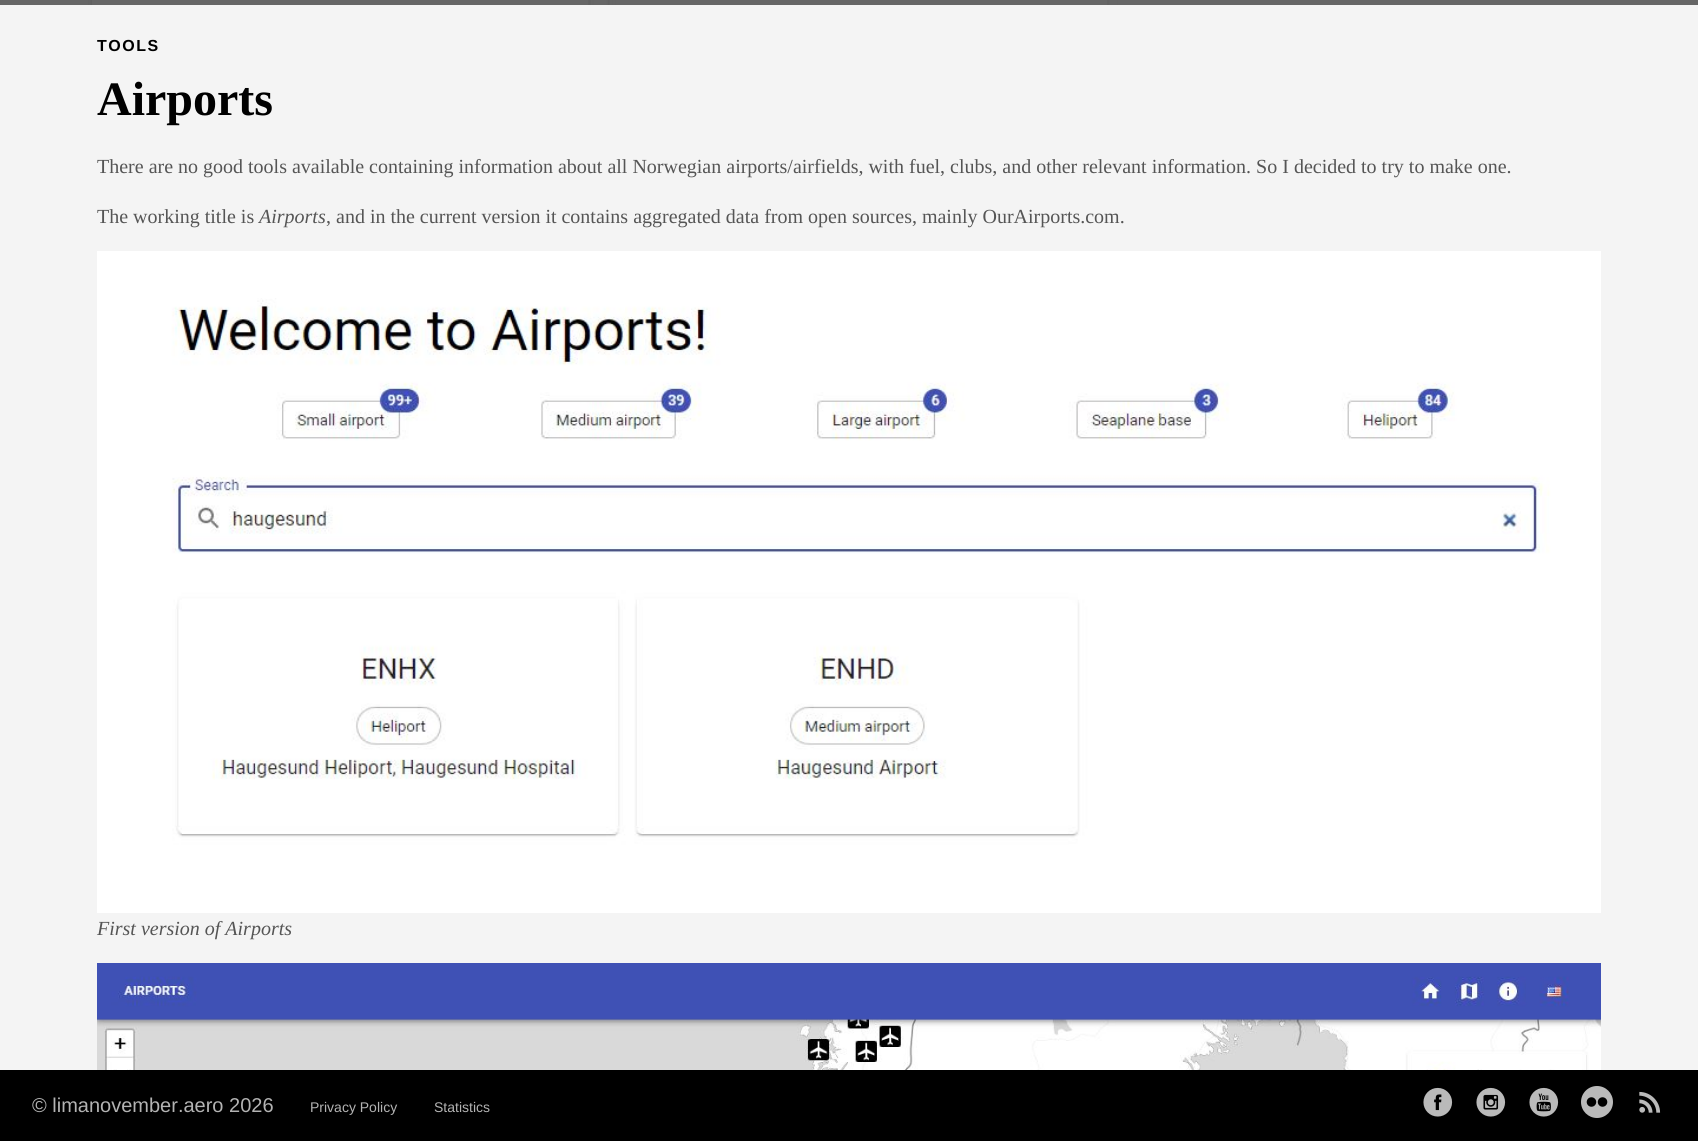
import math
import cairo

surface = cairo.ImageSurface(cairo.FORMAT_RGB24, 1698, 1141)
ctx = cairo.Context(surface)
options = cairo.FontOptions()
options.set_hint_metrics(cairo.HINT_METRICS_OFF)
options.set_hint_style(cairo.HINT_STYLE_NONE)
ctx.set_font_options(options)
ctx.set_miter_limit(4)


def set_color(code):
    ctx.set_source_rgb(*(v / 255 for v in bytes.fromhex(code[-6:])))


def draw_text(x, y, s, family, size, color, bold=False, italic=False):
    ctx.select_font_face(family, cairo.FONT_SLANT_ITALIC if italic else cairo.FONT_SLANT_NORMAL, cairo.FONT_WEIGHT_BOLD if bold else cairo.FONT_WEIGHT_NORMAL)
    ctx.set_font_size(size)
    set_color(color)
    ctx.move_to(x, y)
    ctx.show_text(s)


def draw_spaced(x, y, s, letter, word):
    ctx.move_to(x, y)
    for ch in s:
        ctx.show_text(ch)
        ctx.rel_move_to(letter + word * (ch == ' '), 0)


def fill_rect(x, y, w, h, color):
    set_color(color)
    ctx.rectangle(x, y, w, h)
    ctx.fill()


def draw_image(path, x, y, w, h):
    ctx.save()
    ctx.set_source_surface(cairo.ImageSurface.create_from_png(path), x, y)
    ctx.rectangle(x, y, w, h)
    ctx.fill()
    ctx.restore()


set_color("#f4f4f4")
ctx.paint()
draw_image("assets/img1.png", 0, 0, 1698, 5)
ctx.select_font_face("Liberation Sans", cairo.FONT_SLANT_NORMAL, cairo.FONT_WEIGHT_BOLD)
ctx.set_font_size(16)
set_color("#000000")
draw_spaced(97, 51, "TOOLS", 1.5, 0)
draw_text(97, 115, "Airports", "Liberation Serif", 48, "#000000", bold=True)
draw_text(97, 173, "There are no good tools available containing information about all Norwegian airports/airfields, with fuel, clubs, and other relevant information. So I decided to try to make one.", "Liberation Serif", 20, "#555555")
draw_text(97, 223, "The working title is", "Liberation Serif", 20, "#555555")
draw_text(259, 223, "Airports", "Liberation Serif", 20, "#555555", italic=True)
draw_text(326, 223, ", and in the current version it contains aggregated data from open sources, mainly OurAirports.com.", "Liberation Serif", 20, "#555555")
draw_image("assets/img2.png", 97, 251, 1504, 662)
draw_text(97, 935, "First version of Airports", "Liberation Serif", 20, "#555555", italic=True)
draw_image("assets/img3.png", 97, 963, 1504, 107)
fill_rect(0, 1070, 1698, 71, "#000000")
draw_text(32, 1112, "© limanovember.aero 2026", "Liberation Sans", 20, "#b3b3b3")
draw_text(310, 1112, "Privacy Policy", "Liberation Sans", 14, "#b3b3b3")
draw_text(434, 1112, "Statistics", "Liberation Sans", 14, "#b3b3b3")
draw_image("assets/img4.png", 1423, 1087, 30, 30)
draw_image("assets/img5.png", 1476, 1087, 30, 30)
draw_image("assets/img6.png", 1529, 1087, 30, 30)
draw_image("assets/img7.png", 1581, 1086, 32, 32)
draw_image("assets/img8.png", 1639, 1091, 22, 22)
surface.write_to_png("output.png")
